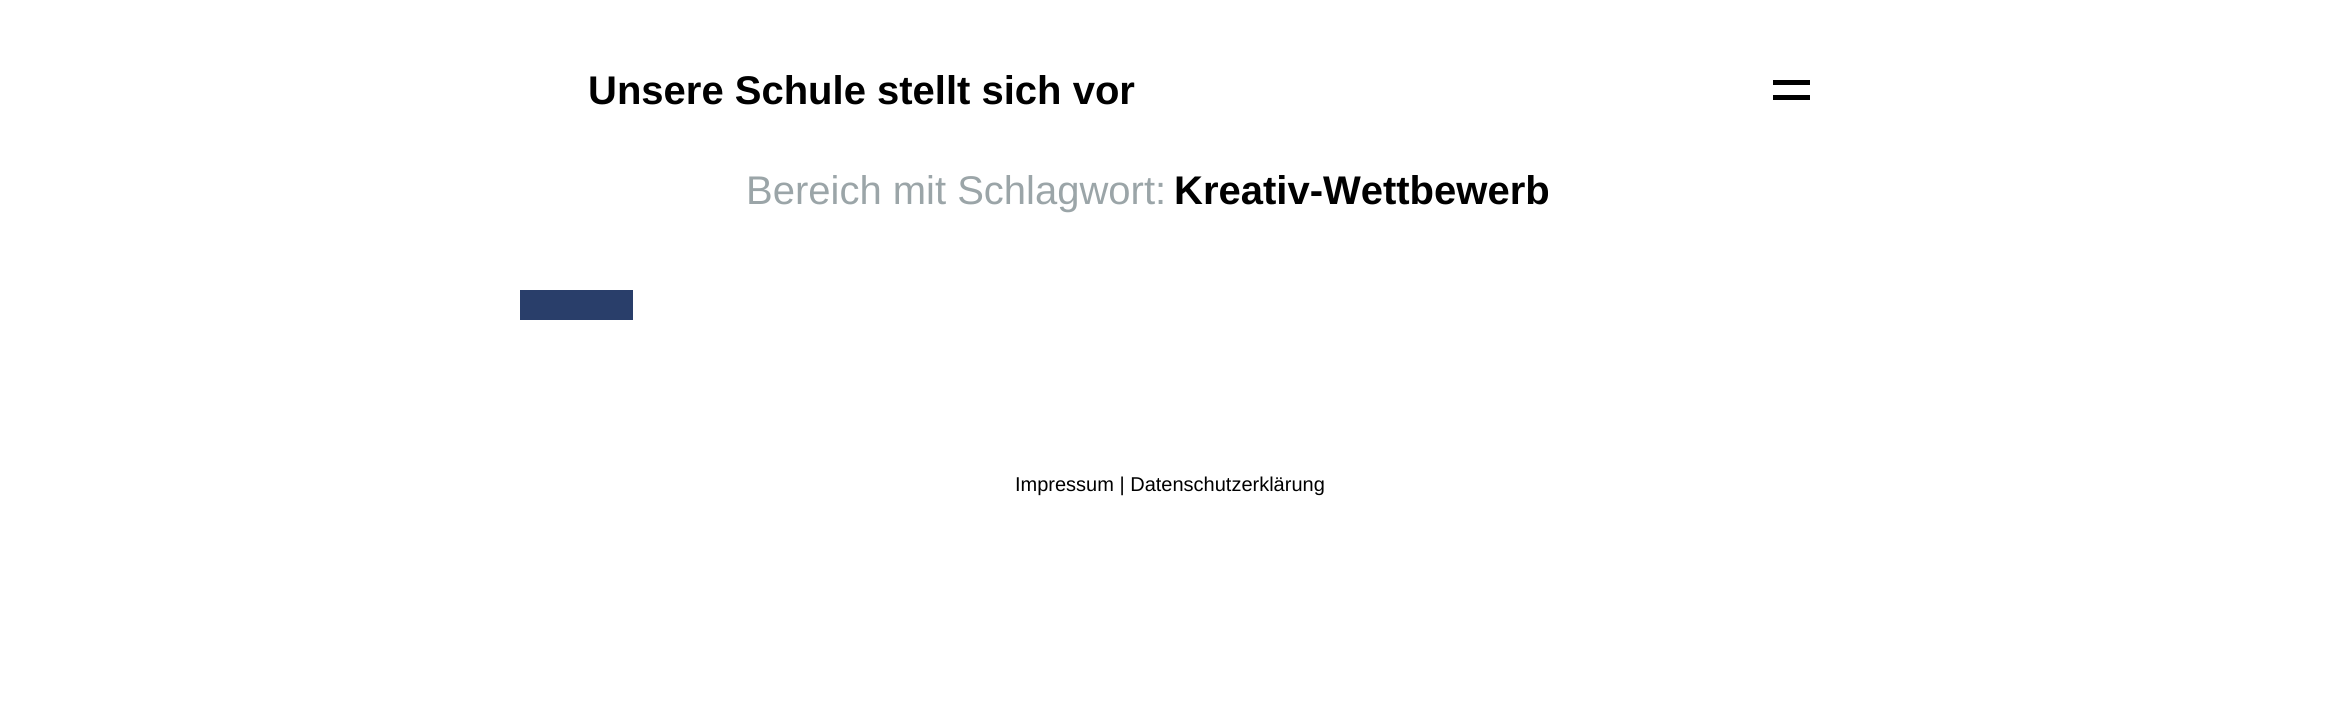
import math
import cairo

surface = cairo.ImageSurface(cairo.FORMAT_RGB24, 2339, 708)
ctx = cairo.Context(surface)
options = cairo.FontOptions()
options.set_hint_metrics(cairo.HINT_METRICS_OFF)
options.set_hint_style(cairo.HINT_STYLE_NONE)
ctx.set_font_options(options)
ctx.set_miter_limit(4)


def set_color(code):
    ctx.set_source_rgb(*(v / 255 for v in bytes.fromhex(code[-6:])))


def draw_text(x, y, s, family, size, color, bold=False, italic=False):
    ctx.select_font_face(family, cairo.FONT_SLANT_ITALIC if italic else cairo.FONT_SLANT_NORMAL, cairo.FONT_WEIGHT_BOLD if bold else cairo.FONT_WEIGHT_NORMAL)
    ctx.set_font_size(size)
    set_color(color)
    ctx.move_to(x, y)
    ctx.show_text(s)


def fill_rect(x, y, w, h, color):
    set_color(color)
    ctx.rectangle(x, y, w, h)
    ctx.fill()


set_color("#ffffff")
ctx.paint()
draw_text(588, 104, "Unsere Schule stellt sich vor", "Liberation Sans", 40, "#000000", bold=True)
fill_rect(1773, 80, 37, 5, "#000000")
fill_rect(1773, 95, 37, 5, "#000000")
draw_text(746, 204, "Bereich mit Schlagwort:", "Liberation Sans", 40, "#9ba5a8")
draw_text(1174, 204, "Kreativ-Wettbewerb", "Liberation Sans", 40, "#000000", bold=True)
fill_rect(520, 290, 113, 30, "#293e6a")
draw_text(1015, 491, "Impressum | Datenschutzerklärung", "Liberation Sans", 20, "#000000")
surface.write_to_png("output.png")
